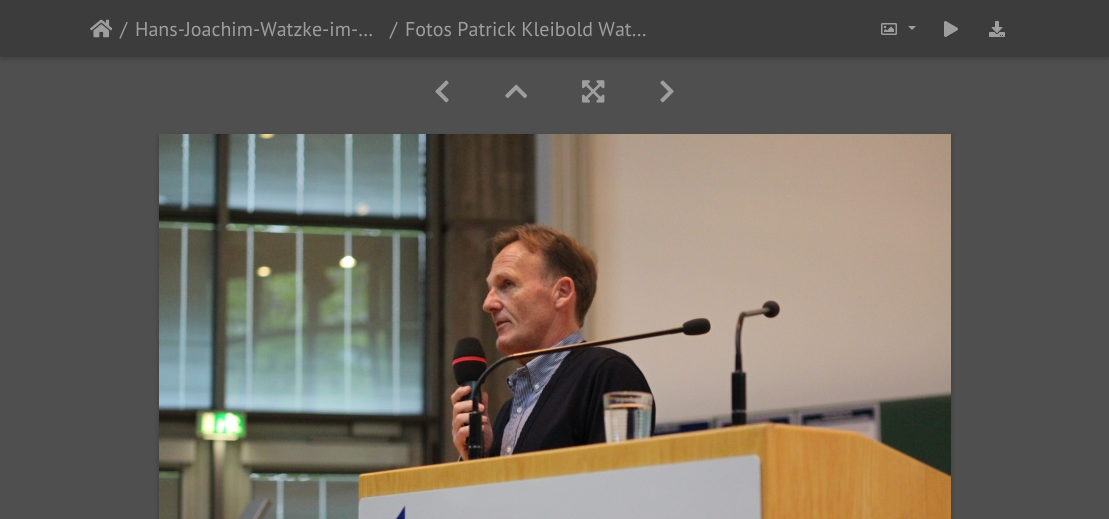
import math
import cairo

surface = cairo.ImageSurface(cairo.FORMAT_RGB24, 1109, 519)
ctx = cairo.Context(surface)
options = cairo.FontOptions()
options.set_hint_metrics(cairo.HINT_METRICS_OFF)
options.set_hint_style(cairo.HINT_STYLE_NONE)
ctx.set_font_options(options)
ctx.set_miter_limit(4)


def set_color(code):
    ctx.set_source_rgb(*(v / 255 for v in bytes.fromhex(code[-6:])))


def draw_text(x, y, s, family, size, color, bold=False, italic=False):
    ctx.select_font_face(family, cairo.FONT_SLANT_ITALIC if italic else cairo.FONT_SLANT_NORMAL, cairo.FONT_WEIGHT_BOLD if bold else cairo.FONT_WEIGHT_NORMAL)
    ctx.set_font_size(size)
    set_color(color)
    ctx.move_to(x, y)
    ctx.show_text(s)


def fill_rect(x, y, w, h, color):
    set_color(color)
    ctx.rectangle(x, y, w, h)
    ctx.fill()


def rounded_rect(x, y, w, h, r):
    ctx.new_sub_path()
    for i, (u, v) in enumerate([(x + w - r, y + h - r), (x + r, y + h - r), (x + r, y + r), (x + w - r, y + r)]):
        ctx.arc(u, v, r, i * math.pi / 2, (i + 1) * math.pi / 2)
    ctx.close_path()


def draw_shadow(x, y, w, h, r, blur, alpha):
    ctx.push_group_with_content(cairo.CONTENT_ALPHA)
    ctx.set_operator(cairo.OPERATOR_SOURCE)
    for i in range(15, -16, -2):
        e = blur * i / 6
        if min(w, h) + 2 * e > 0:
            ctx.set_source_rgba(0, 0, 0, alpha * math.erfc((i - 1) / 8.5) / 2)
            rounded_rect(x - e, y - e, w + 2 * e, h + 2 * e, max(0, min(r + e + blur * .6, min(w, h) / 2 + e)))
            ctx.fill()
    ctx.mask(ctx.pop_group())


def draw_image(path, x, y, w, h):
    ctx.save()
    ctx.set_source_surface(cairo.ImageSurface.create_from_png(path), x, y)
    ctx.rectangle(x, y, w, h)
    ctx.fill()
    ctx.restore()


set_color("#4f4f4f")
ctx.paint()
set_color("#000000")
draw_shadow(1, 4, 1107, 55, 0, 2.5, 0.2)
fill_rect(0, 0, 1109, 57, "#3c3c3c")
draw_image("assets/img1.png", 90, 19, 22, 19)
draw_text(120, 36, "/", "PT Sans", 20, "#9e9e9e")
draw_text(135, 36, "Hans-Joachim-Watzke-im-…", "PT Sans", 20, "#9e9e9e")
draw_text(390, 36, "/", "PT Sans", 20, "#9e9e9e")
draw_text(405, 36, "Fotos Patrick Kleibold Wat…", "PT Sans", 20, "#9e9e9e")
draw_image("assets/img2.png", 881, 23, 16, 12)
ctx.new_path()
ctx.move_to(908, 26)
ctx.line_to(916, 26)
ctx.line_to(912, 30)
ctx.close_path()
ctx.fill()
draw_image("assets/img3.png", 944, 21, 14, 16)
draw_image("assets/img4.png", 989, 21, 16, 16)
draw_image("assets/img5.png", 435, 80, 14, 23)
draw_image("assets/img6.png", 505, 84, 22, 14)
draw_image("assets/img7.png", 582, 80, 23, 23)
draw_image("assets/img8.png", 660, 80, 14, 23)
set_color("#000000")
draw_shadow(159, 137, 792, 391, 0, 3, 0.23)
draw_image("assets/img9.png", 159, 134, 792, 385)
surface.write_to_png("output.png")
